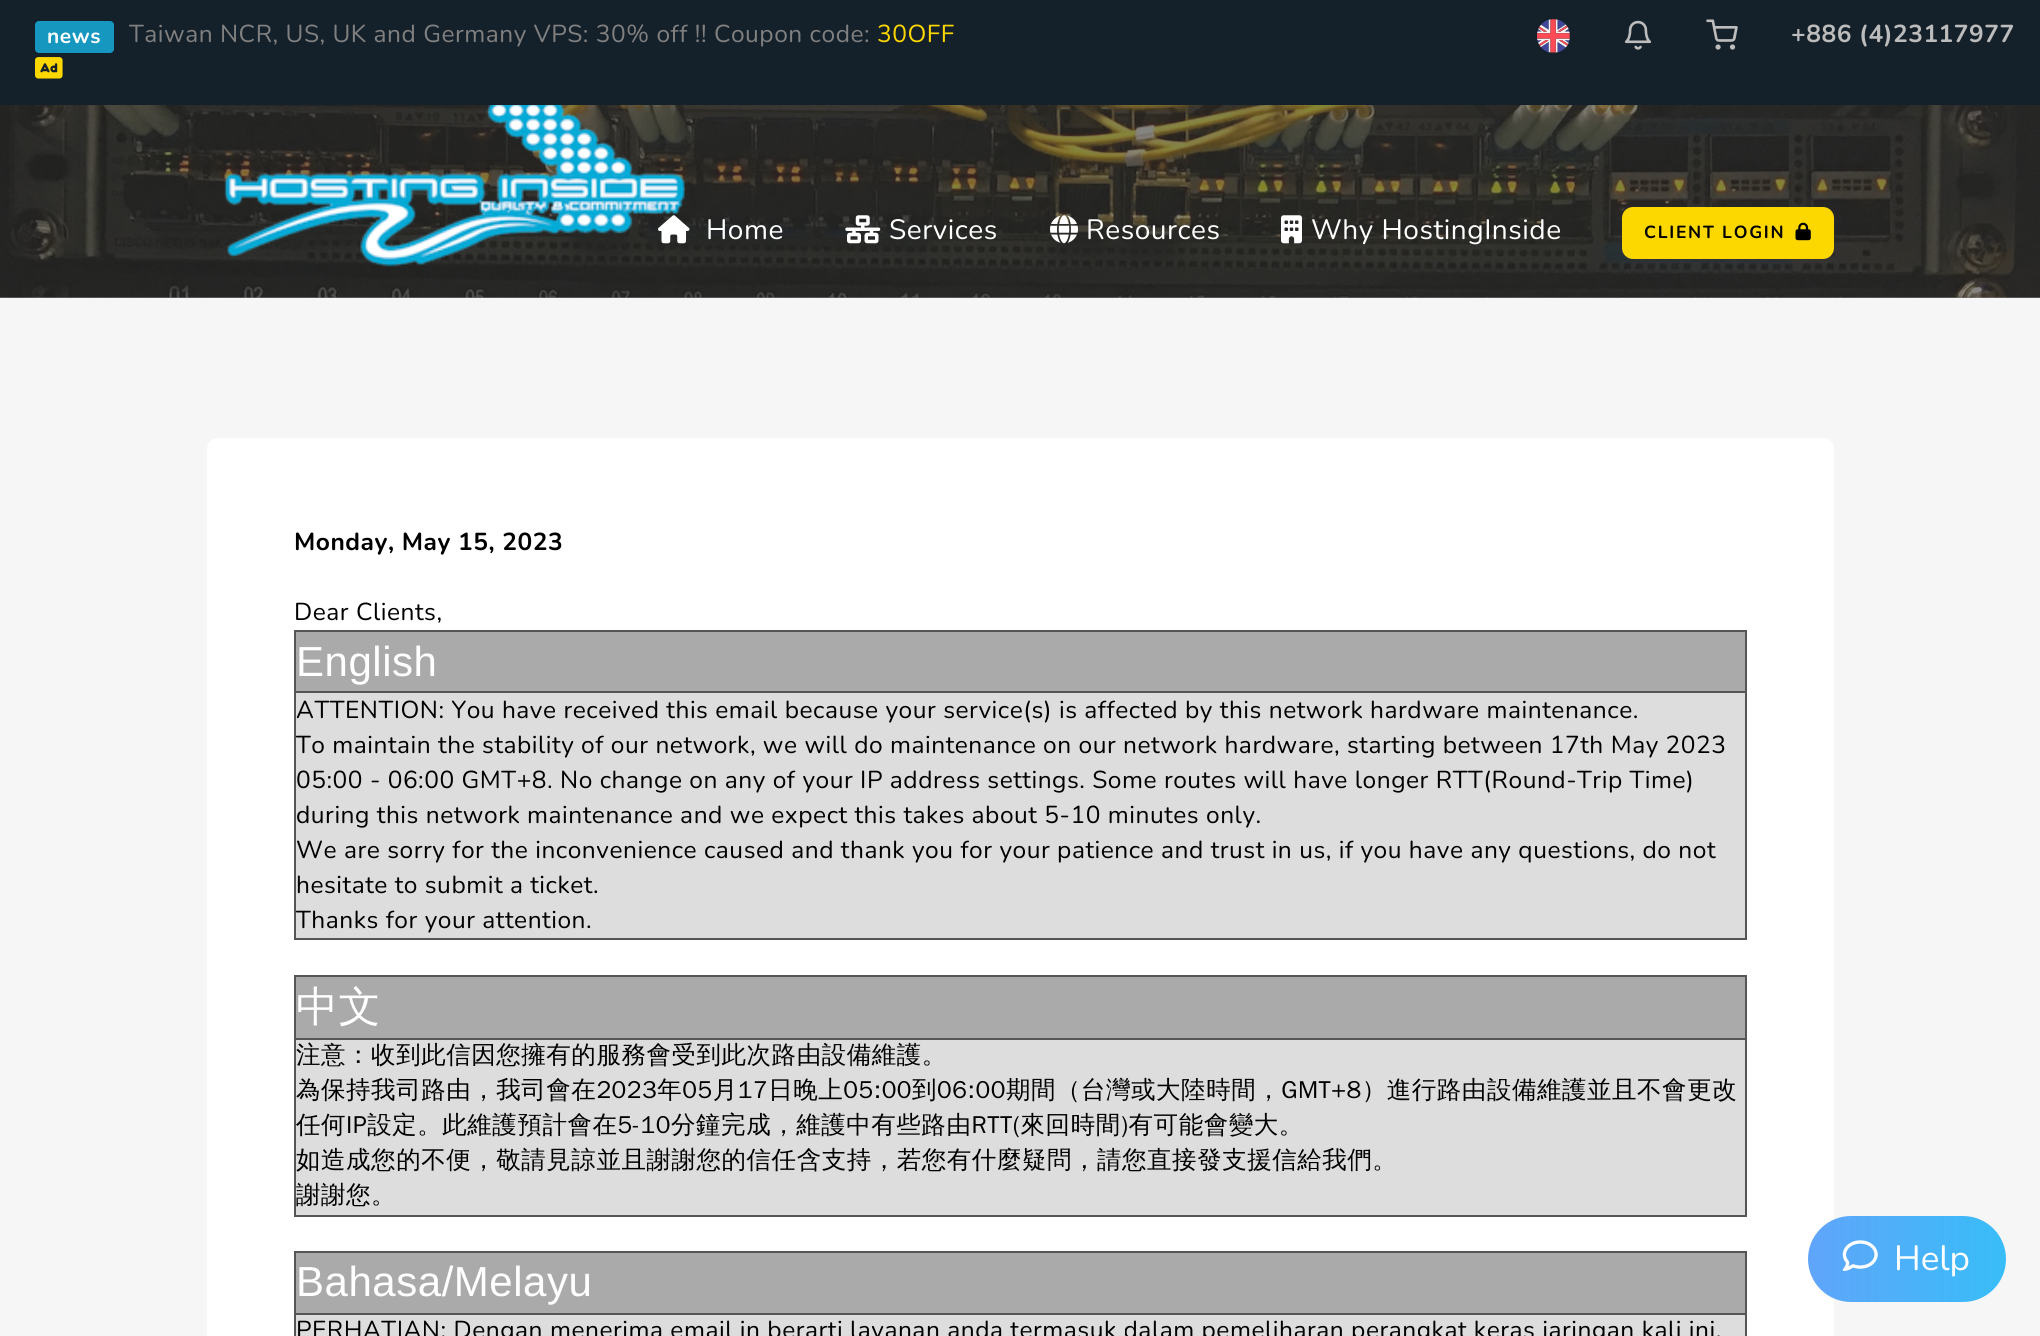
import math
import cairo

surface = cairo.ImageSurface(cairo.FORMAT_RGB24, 2040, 1336)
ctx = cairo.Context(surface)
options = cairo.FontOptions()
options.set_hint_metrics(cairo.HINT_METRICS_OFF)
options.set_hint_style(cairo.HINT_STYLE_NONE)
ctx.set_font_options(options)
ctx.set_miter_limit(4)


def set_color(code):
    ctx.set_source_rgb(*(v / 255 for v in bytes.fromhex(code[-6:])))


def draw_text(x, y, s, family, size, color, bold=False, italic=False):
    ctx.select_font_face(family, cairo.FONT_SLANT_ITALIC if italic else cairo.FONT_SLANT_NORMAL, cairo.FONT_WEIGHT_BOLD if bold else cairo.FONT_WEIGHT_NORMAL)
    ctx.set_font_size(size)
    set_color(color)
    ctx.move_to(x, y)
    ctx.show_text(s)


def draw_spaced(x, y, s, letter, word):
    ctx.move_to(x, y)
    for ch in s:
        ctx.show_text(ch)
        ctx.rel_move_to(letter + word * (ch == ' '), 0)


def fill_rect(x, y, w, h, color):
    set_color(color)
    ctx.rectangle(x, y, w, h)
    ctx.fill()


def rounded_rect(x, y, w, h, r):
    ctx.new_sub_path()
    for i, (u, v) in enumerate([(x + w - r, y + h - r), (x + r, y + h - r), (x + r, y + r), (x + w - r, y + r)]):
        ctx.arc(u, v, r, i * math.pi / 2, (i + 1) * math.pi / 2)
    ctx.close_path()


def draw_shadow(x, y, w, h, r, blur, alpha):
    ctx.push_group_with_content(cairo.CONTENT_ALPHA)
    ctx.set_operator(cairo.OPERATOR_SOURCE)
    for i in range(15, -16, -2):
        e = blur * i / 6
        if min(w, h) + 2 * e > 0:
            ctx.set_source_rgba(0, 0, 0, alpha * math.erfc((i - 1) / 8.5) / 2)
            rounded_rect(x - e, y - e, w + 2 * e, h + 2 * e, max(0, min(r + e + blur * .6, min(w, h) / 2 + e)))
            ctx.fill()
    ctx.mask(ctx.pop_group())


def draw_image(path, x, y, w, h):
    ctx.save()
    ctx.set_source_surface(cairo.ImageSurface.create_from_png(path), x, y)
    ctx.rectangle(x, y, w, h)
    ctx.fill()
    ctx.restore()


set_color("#f6f6f6")
ctx.paint()
fill_rect(0, 297, 2040, 1, "#818181")
fill_rect(0, 0, 2040, 105, "#15212a")
set_color("#1697bf")
rounded_rect(35, 21, 79, 32, 4)
ctx.fill()
ctx.select_font_face("Nunito", cairo.FONT_SLANT_NORMAL, cairo.FONT_WEIGHT_BOLD)
ctx.set_font_size(21)
set_color("#ffffff")
draw_spaced(47, 43, "news", 0.53, 0)
ctx.select_font_face("Nunito")
ctx.set_font_size(24.5)
set_color("#808080")
draw_spaced(129, 42, "Taiwan NCR, US, UK and Germany VPS: 30% off !! Coupon code:", 0.53, 0)
set_color("#fdd700")
draw_spaced(877, 42, "30OFF", 0.53, 0)
draw_image("assets/img1.png", 35, 57, 28, 22)
draw_image("assets/img2.png", 1537, 19, 33, 34)
draw_image("assets/img3.png", 1624, 20, 28, 30)
draw_image("assets/img4.png", 1706, 19, 32, 31)
ctx.select_font_face("Nunito", cairo.FONT_SLANT_NORMAL, cairo.FONT_WEIGHT_BOLD)
set_color("#bcbcbc")
draw_spaced(1791, 42, "+886 (4)23117977", 0.53, 0)
draw_image("assets/img5.png", 0, 105, 2040, 193)
draw_image("assets/img7.png", 658, 215, 32, 29)
draw_image("assets/img6.png", 224, 105, 462, 162)
ctx.select_font_face("Nunito")
ctx.set_font_size(28)
set_color("#ffffff")
draw_spaced(706, 239, "Home", 0.53, 0)
draw_image("assets/img8.png", 845, 215, 36, 29)
draw_spaced(889, 239, "Services", 0.53, 0)
draw_image("assets/img9.png", 1050, 215, 28, 29)
draw_spaced(1086, 239, "Resources", 0.53, 0)
draw_image("assets/img10.png", 1281, 215, 21, 29)
draw_spaced(1311, 239, "Why HostingInside", 0.53, 0)
set_color("#3e3e4f")
draw_shadow(1622, 210, 212, 53, 11, 7, 0.23)
set_color("#fdd700")
rounded_rect(1622, 207, 212, 52, 11)
ctx.fill()
ctx.select_font_face("Nunito", cairo.FONT_SLANT_NORMAL, cairo.FONT_WEIGHT_BOLD)
ctx.set_font_size(17.5)
set_color("#000000")
draw_spaced(1644, 238, "CLIENT LOGIN", 1.75, 0)
draw_image("assets/img11.png", 1795, 222, 16, 19)
set_color("#ffffff")
rounded_rect(207, 438, 1627, 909, 11)
ctx.fill()
ctx.set_font_size(24.5)
set_color("#000000")
draw_spaced(294, 550, "Monday, May 15, 2023", 0.53, 0)
ctx.select_font_face("Nunito")
draw_spaced(294, 620, "Dear Clients,", 0.53, 0)
fill_rect(296, 632, 1449, 59, "#aaaaaa")
fill_rect(294, 630, 1453, 2, "#555555")
fill_rect(1745, 630, 2, 310, "#555555")
fill_rect(294, 938, 1453, 2, "#555555")
fill_rect(294, 630, 2, 310, "#555555")
ctx.select_font_face("Liberation Sans")
ctx.set_font_size(42)
set_color("#ffffff")
draw_spaced(296, 676, "English", 0.53, 0)
fill_rect(296, 693, 1449, 245, "#dddddd")
fill_rect(294, 691, 1453, 2, "#555555")
ctx.select_font_face("Nunito")
ctx.set_font_size(24.5)
set_color("#000000")
draw_spaced(296, 718, "ATTENTION: You have received this email because your service(s) is affected by this network hardware maintenance.", 0.53, 0)
draw_spaced(296, 753, "To maintain the stability of our network, we will do maintenance on our network hardware, starting between 17th May 2023", 0.53, 0)
draw_spaced(296, 788, "05:00 - 06:00 GMT+8. No change on any of your IP address settings. Some routes will have longer RTT(Round-Trip Time)", 0.53, 0)
draw_spaced(296, 823, "during this network maintenance and we expect this takes about 5-10 minutes only.", 0.53, 0)
draw_spaced(296, 858, "We are sorry for the inconvenience caused and thank you for your patience and trust in us, if you have any questions, do not", 0.53, 0)
draw_spaced(296, 893, "hesitate to submit a ticket.", 0.53, 0)
draw_spaced(296, 928, "Thanks for your attention.", 0.53, 0)
fill_rect(296, 977, 1449, 61, "#aaaaaa")
fill_rect(294, 975, 1453, 2, "#555555")
fill_rect(1745, 975, 2, 241, "#555555")
fill_rect(294, 1215, 1453, 2, "#555555")
fill_rect(294, 975, 2, 241, "#555555")
ctx.select_font_face("WenQuanYi Zen Hei Medium")
ctx.set_font_size(42)
set_color("#ffffff")
draw_spaced(296, 1021, "中文", 0.53, 0)
fill_rect(296, 1040, 1449, 175, "#dddddd")
fill_rect(294, 1038, 1453, 2, "#555555")
ctx.set_font_size(24.5)
set_color("#000000")
draw_spaced(296, 1063, "注意：收到此信因您擁有的服務會受到此次路由設備維護。", 0.53, 0)
draw_spaced(296, 1098, "為保持我司路由，我司會在2023年05月17日晚上05:00到06:00期間（台灣或大陸時間，GMT+8）進行路由設備維護並且不會更改", 0.53, 0)
draw_spaced(296, 1133, "任何IP設定。此維護預計會在5-10分鐘完成，維護中有些路由RTT(來回時間)有可能會變大。", 0.53, 0)
draw_spaced(296, 1168, "如造成您的不便，敬請見諒並且謝謝您的信任含支持，若您有什麼疑問，請您直接發支援信給我們。", 0.53, 0)
draw_spaced(296, 1203, "謝謝您。", 0.53, 0)
fill_rect(296, 1253, 1449, 60, "#aaaaaa")
fill_rect(294, 1251, 1453, 2, "#555555")
fill_rect(1745, 1251, 2, 85, "#555555")
fill_rect(294, 1251, 2, 85, "#555555")
ctx.select_font_face("Liberation Sans")
ctx.set_font_size(42)
set_color("#ffffff")
draw_spaced(296, 1296, "Bahasa/Melayu", 0.53, 0)
fill_rect(296, 1315, 1449, 21, "#dddddd")
fill_rect(294, 1313, 1453, 2, "#555555")
ctx.select_font_face("Nunito")
ctx.set_font_size(24.5)
set_color("#000000")
draw_spaced(296, 1338, "PERHATIAN: Dengan menerima email in berarti layanan anda termasuk dalam pemeliharan perangkat keras jaringan kali ini.", 0.53, 0)
gradient = cairo.LinearGradient(1808, 1259, 2006, 1259)
gradient.add_color_stop_rgba(0, 0.376, 0.647, 0.98, 1)
gradient.add_color_stop_rgba(1, 0.22, 0.741, 0.973, 1)
ctx.set_source(gradient)
rounded_rect(1808, 1216, 198, 86, 43)
ctx.fill()
draw_image("assets/img12.png", 1842, 1240, 36, 31)
draw_text(1894, 1270, "Help", "Nunito", 35, "#ffffff")
surface.write_to_png("output.png")
